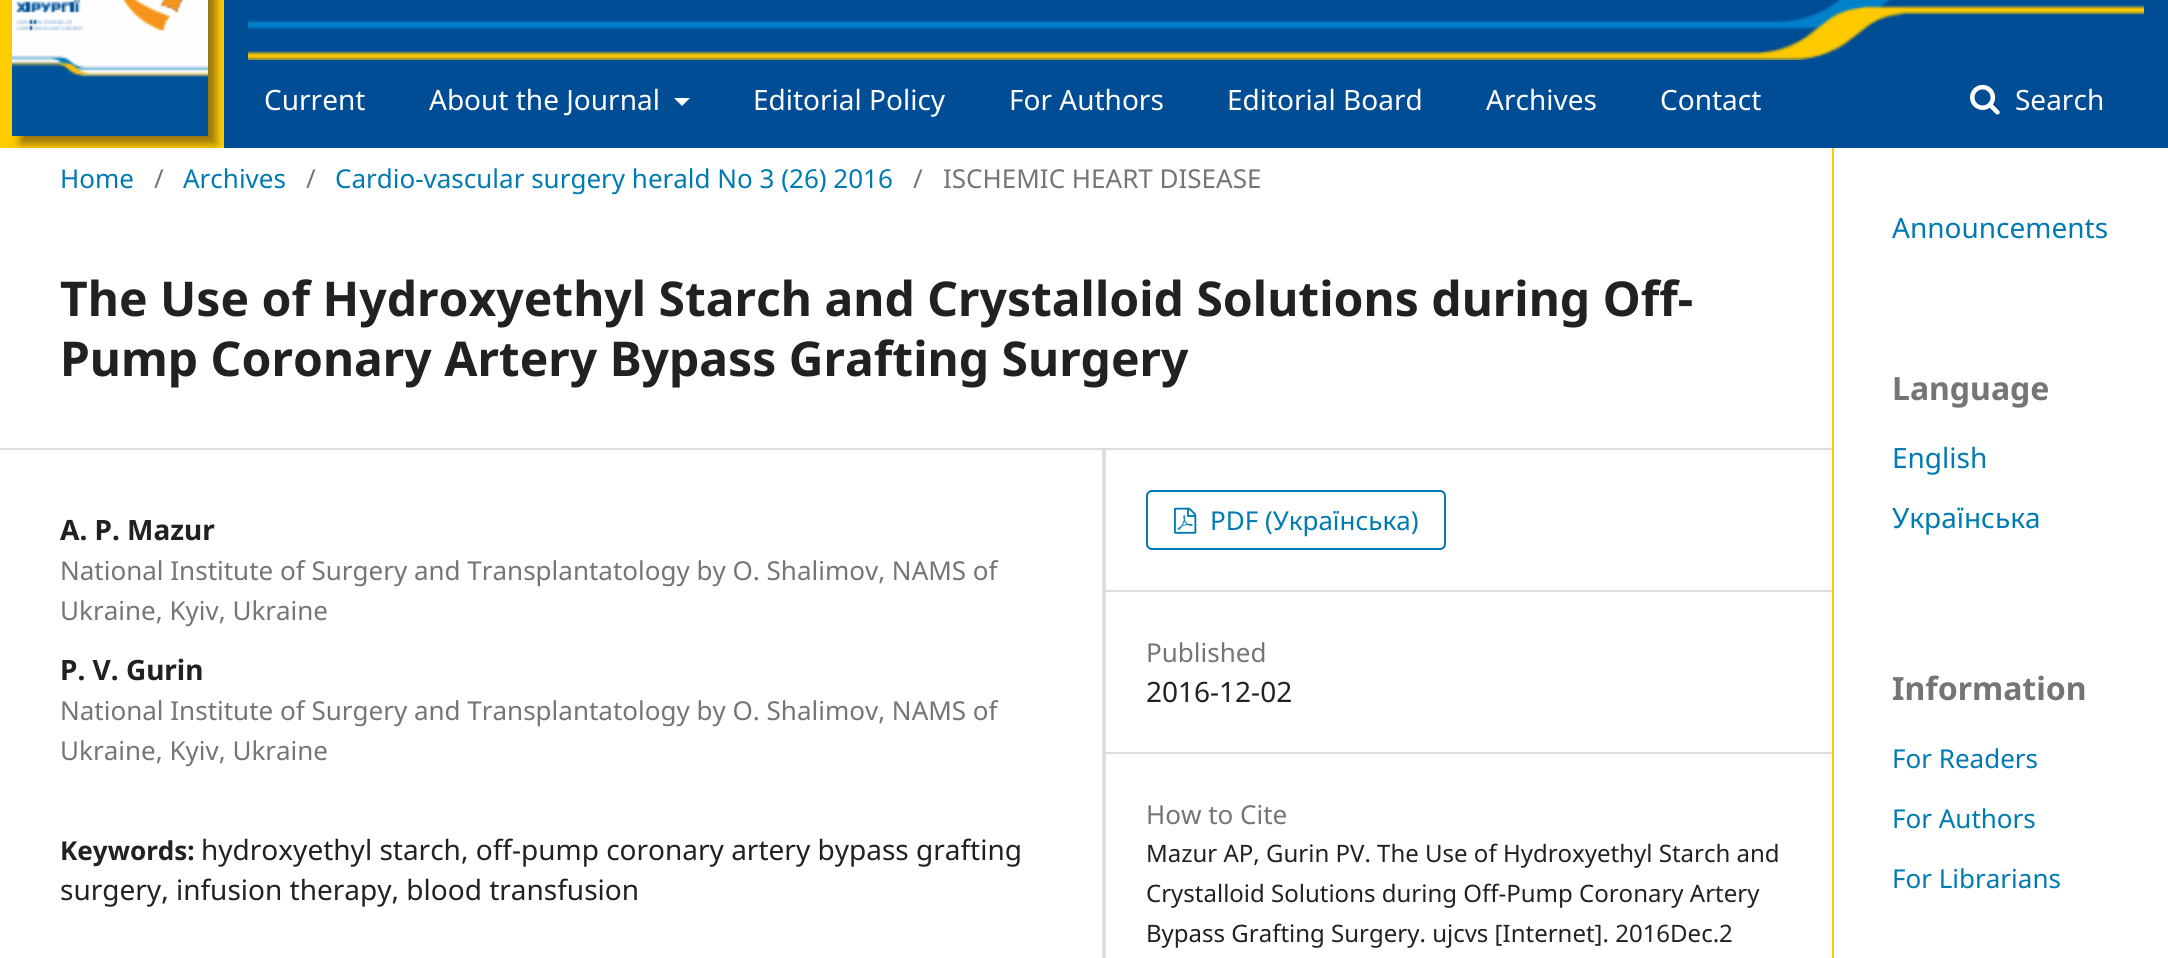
import math
import cairo

surface = cairo.ImageSurface(cairo.FORMAT_RGB24, 2168, 958)
ctx = cairo.Context(surface)
options = cairo.FontOptions()
options.set_hint_metrics(cairo.HINT_METRICS_OFF)
options.set_hint_style(cairo.HINT_STYLE_NONE)
ctx.set_font_options(options)
ctx.set_miter_limit(4)


def set_color(code):
    ctx.set_source_rgb(*(v / 255 for v in bytes.fromhex(code[-6:])))


def draw_text(x, y, s, family, size, color, bold=False, italic=False):
    ctx.select_font_face(family, cairo.FONT_SLANT_ITALIC if italic else cairo.FONT_SLANT_NORMAL, cairo.FONT_WEIGHT_BOLD if bold else cairo.FONT_WEIGHT_NORMAL)
    ctx.set_font_size(size)
    set_color(color)
    ctx.move_to(x, y)
    ctx.show_text(s)


def fill_rect(x, y, w, h, color):
    set_color(color)
    ctx.rectangle(x, y, w, h)
    ctx.fill()


def rounded_rect(x, y, w, h, r):
    ctx.new_sub_path()
    for i, (u, v) in enumerate([(x + w - r, y + h - r), (x + r, y + h - r), (x + r, y + r), (x + w - r, y + r)]):
        ctx.arc(u, v, r, i * math.pi / 2, (i + 1) * math.pi / 2)
    ctx.close_path()


def draw_shadow(x, y, w, h, r, blur, alpha):
    ctx.push_group_with_content(cairo.CONTENT_ALPHA)
    ctx.set_operator(cairo.OPERATOR_SOURCE)
    for i in range(15, -16, -2):
        e = blur * i / 6
        if min(w, h) + 2 * e > 0:
            ctx.set_source_rgba(0, 0, 0, alpha * math.erfc((i - 1) / 8.5) / 2)
            rounded_rect(x - e, y - e, w + 2 * e, h + 2 * e, max(0, min(r + e + blur * .6, min(w, h) / 2 + e)))
            ctx.fill()
    ctx.mask(ctx.pop_group())


def draw_image(path, x, y, w, h):
    ctx.save()
    ctx.set_source_surface(cairo.ImageSurface.create_from_png(path), x, y)
    ctx.rectangle(x, y, w, h)
    ctx.fill()
    ctx.restore()


set_color("#ffcc00")
ctx.paint()
set_color("#997711")
draw_shadow(20, -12, 196, 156, 0, 4, 1)
draw_image("assets/img1.png", 12, 0, 196, 136)
fill_rect(224, 0, 1944, 148, "#004d95")
draw_image("assets/img2.png", 248, 0, 1896, 60)
draw_text(264, 110, "Current", "Noto Sans", 28, "#ffffff")
draw_text(429, 110, "About the Journal", "Noto Sans", 28, "#ffffff")
ctx.new_path()
ctx.move_to(674, 98)
ctx.line_to(690, 98)
ctx.line_to(682, 106)
ctx.close_path()
ctx.fill()
draw_text(753, 110, "Editorial Policy", "Noto Sans", 28, "#ffffff")
draw_text(1009, 110, "For Authors", "Noto Sans", 28, "#ffffff")
draw_text(1227, 110, "Editorial Board", "Noto Sans", 28, "#ffffff")
draw_text(1486, 110, "Archives", "Noto Sans", 28, "#ffffff")
draw_text(1660, 110, "Contact", "Noto Sans", 28, "#ffffff")
draw_image("assets/img3.png", 1970, 84, 30, 31)
draw_text(2015, 110, "Search", "Noto Sans", 28, "#ffffff")
fill_rect(0, 148, 2168, 810, "#ffffff")
draw_text(60, 188, "Home", "Noto Sans", 26, "#007ab2")
draw_text(154, 188, "/", "Noto Sans", 26, "#757575")
draw_text(183, 188, "Archives", "Noto Sans", 26, "#007ab2")
draw_text(306, 188, "/", "Noto Sans", 26, "#757575")
draw_text(335, 188, "Cardio-vascular surgery herald No 3 (26) 2016", "Noto Sans", 26, "#007ab2")
draw_text(913, 188, "/", "Noto Sans", 26, "#757575")
draw_text(943, 188, "ISCHEMIC HEART DISEASE", "Noto Sans", 26, "#757575")
draw_text(60, 316, "The Use of Hydroxyethyl Starch and Crystalloid Solutions during Off-", "Noto Sans", 48, "#212121", bold=True)
draw_text(60, 376, "Pump Coronary Artery Bypass Grafting Surgery", "Noto Sans", 48, "#212121", bold=True)
fill_rect(0, 448, 1832, 2, "#dddddd")
draw_text(60, 540, "A. P. Mazur", "Noto Sans", 28, "#212121", bold=True)
draw_text(60, 580, "National Institute of Surgery and Transplantatology by O. Shalimov, NAMS of", "Noto Sans", 26, "#757575")
draw_text(60, 620, "Ukraine, Kyiv, Ukraine", "Noto Sans", 26, "#757575")
draw_text(60, 680, "P. V. Gurin", "Noto Sans", 28, "#212121", bold=True)
draw_text(60, 720, "National Institute of Surgery and Transplantatology by O. Shalimov, NAMS of", "Noto Sans", 26, "#757575")
draw_text(60, 760, "Ukraine, Kyiv, Ukraine", "Noto Sans", 26, "#757575")
draw_text(60, 860, "Keywords:", "Noto Sans", 26, "#212121", bold=True)
draw_text(201, 860, "hydroxyethyl starch, off-pump coronary artery bypass grafting", "Noto Sans", 28, "#212121")
draw_text(60, 900, "surgery, infusion therapy, blood transfusion", "Noto Sans", 28, "#212121")
fill_rect(1102, 450, 4, 508, "#dddddd")
fill_rect(1106, 590, 728, 2, "#dddddd")
rounded_rect(1147, 491, 298, 58, 5)
set_color("#007ab2")
ctx.stroke()
draw_image("assets/img4.png", 1174, 507, 23, 27)
draw_text(1210, 530, "PDF (Українська)", "Noto Sans", 26, "#007ab2")
fill_rect(1106, 752, 728, 2, "#dddddd")
draw_text(1146, 662, "Published", "Noto Sans", 26, "#757575")
draw_text(1146, 702, "2016-12-02", "Noto Sans", 28, "#212121")
draw_text(1146, 824, "How to Cite", "Noto Sans", 26, "#757575")
draw_text(1146, 862, "Mazur AP, Gurin PV. The Use of Hydroxyethyl Starch and", "Noto Sans", 24, "#212121")
draw_text(1146, 902, "Crystalloid Solutions during Off-Pump Coronary Artery", "Noto Sans", 24, "#212121")
draw_text(1146, 942, "Bypass Grafting Surgery. ujcvs [Internet]. 2016Dec.2", "Noto Sans", 24, "#212121")
fill_rect(1832, 148, 2, 810, "#ffcc00")
draw_text(1892, 238, "Announcements", "Noto Sans", 28, "#007ab2")
draw_text(1892, 400, "Language", "Noto Sans", 32, "#757575", bold=True)
draw_text(1892, 468, "English", "Noto Sans", 28, "#007ab2")
draw_text(1892, 528, "Українська", "Noto Sans", 28, "#007ab2")
draw_text(1892, 700, "Information", "Noto Sans", 32, "#757575", bold=True)
draw_text(1892, 768, "For Readers", "Noto Sans", 26, "#007ab2")
draw_text(1892, 828, "For Authors", "Noto Sans", 26, "#007ab2")
draw_text(1892, 888, "For Librarians", "Noto Sans", 26, "#007ab2")
surface.write_to_png("output.png")
